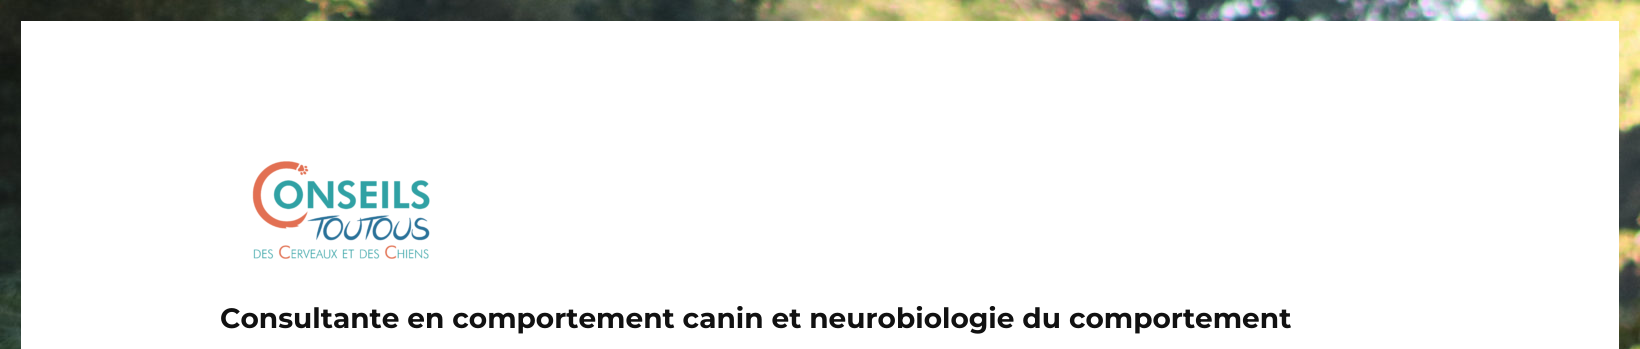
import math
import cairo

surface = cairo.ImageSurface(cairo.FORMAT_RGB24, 1640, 349)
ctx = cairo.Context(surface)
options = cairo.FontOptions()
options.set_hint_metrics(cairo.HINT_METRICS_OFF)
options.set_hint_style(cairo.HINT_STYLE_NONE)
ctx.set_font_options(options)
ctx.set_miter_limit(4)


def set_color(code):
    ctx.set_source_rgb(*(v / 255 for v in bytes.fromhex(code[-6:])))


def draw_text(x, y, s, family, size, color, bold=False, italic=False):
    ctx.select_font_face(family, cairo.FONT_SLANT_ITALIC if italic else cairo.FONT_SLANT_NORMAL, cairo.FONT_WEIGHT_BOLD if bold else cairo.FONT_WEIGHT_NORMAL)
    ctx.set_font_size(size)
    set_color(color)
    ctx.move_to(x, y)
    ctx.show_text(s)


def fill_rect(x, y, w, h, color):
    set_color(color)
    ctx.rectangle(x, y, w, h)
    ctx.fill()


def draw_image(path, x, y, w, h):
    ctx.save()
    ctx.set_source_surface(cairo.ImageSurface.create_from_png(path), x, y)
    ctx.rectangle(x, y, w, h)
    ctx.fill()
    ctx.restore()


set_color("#ffffff")
ctx.paint()
draw_image("assets/img1.png", 0, 0, 1640, 349)
fill_rect(21, 21, 1598, 328, "#ffffff")
draw_image("assets/img2.png", 252, 161, 178, 98)
draw_text(220, 328, "Consultante en comportement canin et neurobiologie du comportement", "Montserrat Thin", 28, "#111111")
surface.write_to_png("output.png")
